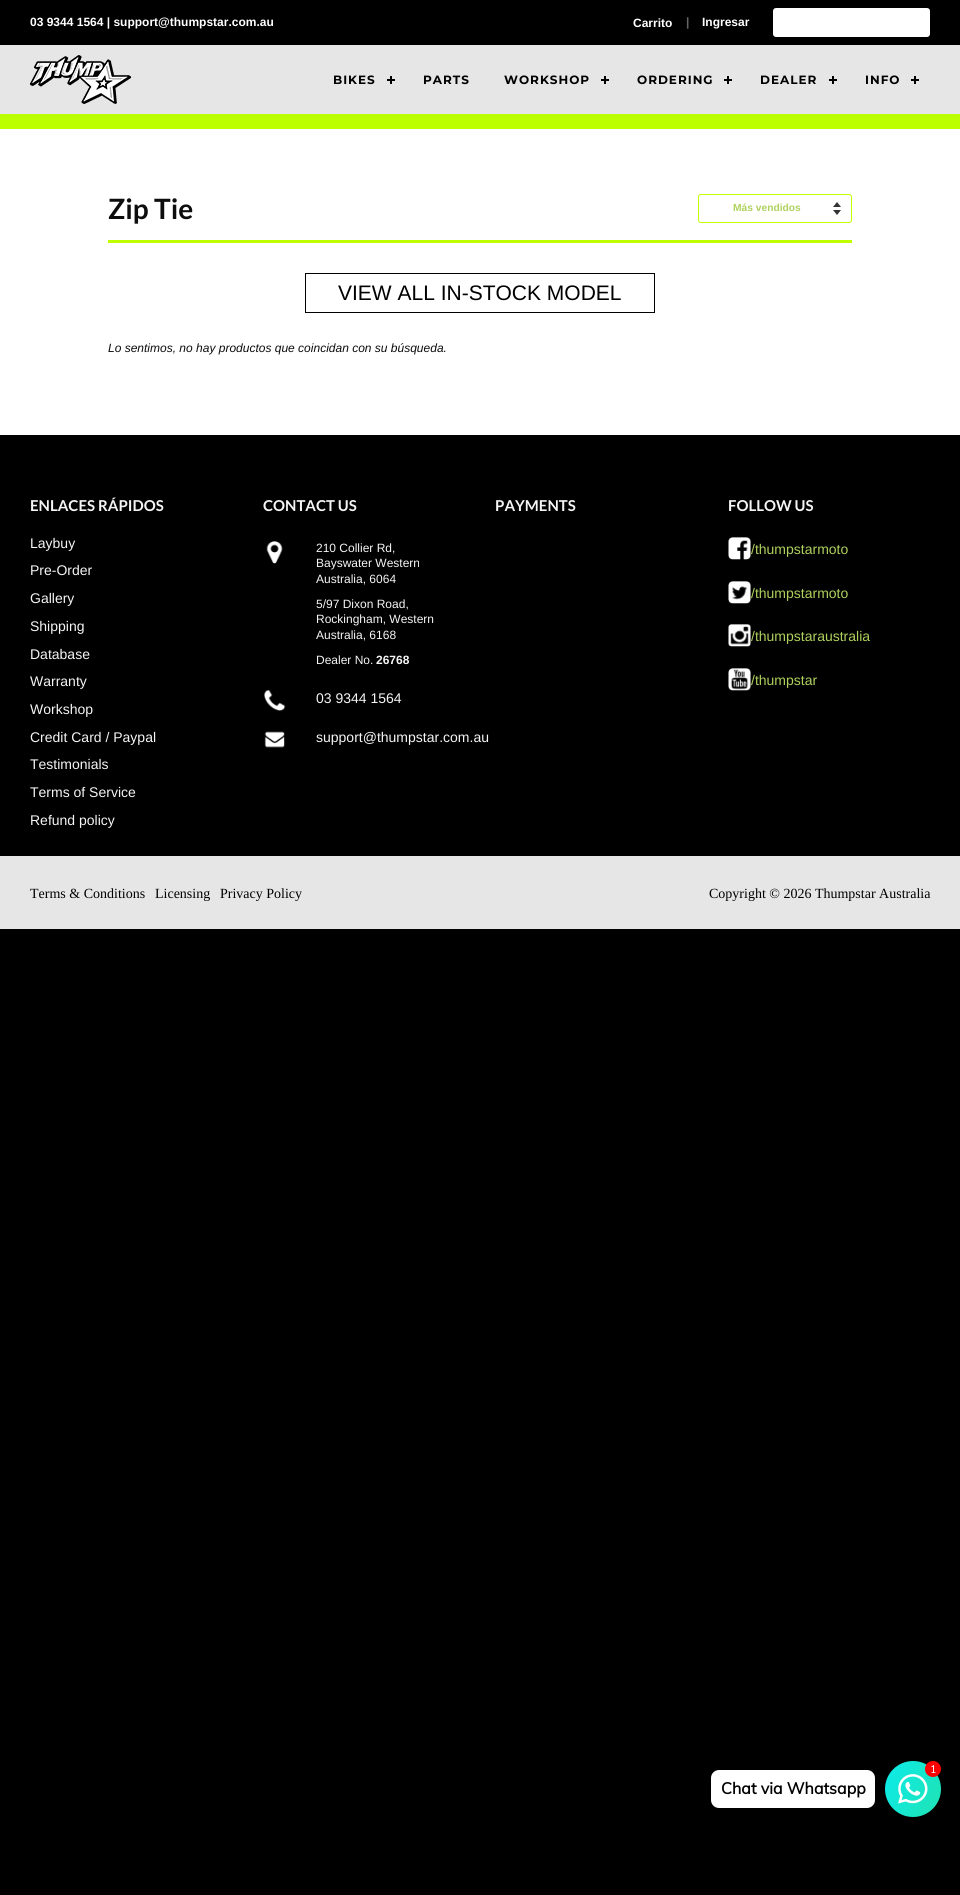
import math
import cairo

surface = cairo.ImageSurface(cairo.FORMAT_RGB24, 960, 1895)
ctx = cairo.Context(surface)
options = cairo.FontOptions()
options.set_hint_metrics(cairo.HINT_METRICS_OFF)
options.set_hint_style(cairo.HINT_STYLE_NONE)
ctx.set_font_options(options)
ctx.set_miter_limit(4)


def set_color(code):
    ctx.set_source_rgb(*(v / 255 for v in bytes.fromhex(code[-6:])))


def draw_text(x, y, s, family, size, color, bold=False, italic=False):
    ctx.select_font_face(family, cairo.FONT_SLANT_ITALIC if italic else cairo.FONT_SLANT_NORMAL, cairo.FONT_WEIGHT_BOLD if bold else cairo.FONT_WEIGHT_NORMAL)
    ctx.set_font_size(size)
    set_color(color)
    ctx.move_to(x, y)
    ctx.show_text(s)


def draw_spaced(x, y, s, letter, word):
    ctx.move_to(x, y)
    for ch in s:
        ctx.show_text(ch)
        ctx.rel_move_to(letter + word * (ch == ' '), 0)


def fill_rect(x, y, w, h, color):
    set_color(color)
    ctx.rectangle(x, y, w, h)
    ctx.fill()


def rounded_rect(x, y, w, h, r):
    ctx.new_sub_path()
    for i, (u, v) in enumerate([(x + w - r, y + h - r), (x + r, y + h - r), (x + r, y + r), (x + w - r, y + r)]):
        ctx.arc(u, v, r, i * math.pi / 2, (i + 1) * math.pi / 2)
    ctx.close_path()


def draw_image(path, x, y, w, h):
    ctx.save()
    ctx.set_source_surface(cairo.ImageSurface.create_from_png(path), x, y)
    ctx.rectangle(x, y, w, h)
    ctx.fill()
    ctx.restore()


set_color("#000000")
ctx.paint()
fill_rect(0, 129, 960, 306, "#ffffff")
draw_text(30, 26, "03 9344 1564 | support@thumpstar.com.au", "Liberation Sans", 12, "#ffffff", bold=True)
draw_text(633, 27, "Carrito", "Liberation Sans", 12, "#ffffff", bold=True)
draw_text(686, 26, "|", "Liberation Sans", 12, "#666666", bold=True)
draw_text(702, 26, "Ingresar", "Liberation Sans", 12, "#ffffff", bold=True)
rounded_rect(773, 8, 157, 29, 3)
ctx.fill()
fill_rect(0, 45, 960, 69, "#e6e6e6")
fill_rect(0, 114, 960, 15, "#bbff00")
draw_image("assets/img1.png", 30, 55, 101, 49)
ctx.select_font_face("Montserrat", cairo.FONT_SLANT_NORMAL, cairo.FONT_WEIGHT_BOLD)
set_color("#000000")
draw_spaced(333, 84, "BIKES", 1, 0)
fill_rect(390, 76, 2, 8, "#000000")
fill_rect(387, 79, 8, 2, "#000000")
draw_spaced(423, 84, "PARTS", 1, 0)
draw_spaced(504, 84, "WORKSHOP", 1, 0)
fill_rect(604, 76, 2, 8, "#000000")
fill_rect(601, 79, 8, 2, "#000000")
draw_spaced(637, 84, "ORDERING", 1, 0)
fill_rect(727, 76, 2, 8, "#000000")
fill_rect(724, 79, 8, 2, "#000000")
draw_spaced(760, 84, "DEALER", 1, 0)
fill_rect(832, 76, 2, 8, "#000000")
fill_rect(829, 79, 8, 2, "#000000")
draw_spaced(865, 84, "INFO", 1, 0)
fill_rect(914, 76, 2, 8, "#000000")
fill_rect(911, 79, 8, 2, "#000000")
fill_rect(108, 240, 744, 3, "#bfff00")
draw_text(108, 219, "Zip Tie", "Lato", 28, "#0e0d0d", bold=True)
draw_image("assets/img2.png", 833, 202, 8, 13)
rounded_rect(698.5, 194.5, 153, 28, 2.5)
set_color("#bfff00")
ctx.set_line_width(1)
ctx.stroke()
draw_text(733, 211, "Más vendidos", "Liberation Sans", 10.25, "#afd15d", bold=True)
ctx.rectangle(305.5, 273.5, 349, 39)
set_color("#000000")
ctx.stroke()
draw_text(338, 300, "VIEW ALL IN-STOCK MODEL", "Liberation Sans", 21, "#000000")
draw_text(108, 352, "Lo sentimos, no hay productos que coincidan con su búsqueda.", "Liberation Sans", 12, "#0e0d0d", italic=True)
draw_text(30, 511, "ENLACES RÁPIDOS", "Lato", 15, "#f5f5f5", bold=True)
draw_text(30, 548, "Laybuy", "Liberation Sans", 14, "#f5f5f5")
draw_text(30, 575, "Pre-Order", "Liberation Sans", 14, "#f5f5f5")
draw_text(30, 603, "Gallery", "Liberation Sans", 14, "#f5f5f5")
draw_text(30, 631, "Shipping", "Liberation Sans", 14, "#f5f5f5")
draw_text(30, 659, "Database", "Liberation Sans", 14, "#f5f5f5")
draw_text(30, 686, "Warranty", "Liberation Sans", 14, "#f5f5f5")
draw_text(30, 714, "Workshop", "Liberation Sans", 14, "#f5f5f5")
draw_text(30, 742, "Credit Card / Paypal", "Liberation Sans", 14, "#f5f5f5")
draw_text(30, 769, "Testimonials", "Liberation Sans", 14, "#f5f5f5")
draw_text(30, 797, "Terms of Service", "Liberation Sans", 14, "#f5f5f5")
draw_text(30, 825, "Refund policy", "Liberation Sans", 14, "#f5f5f5")
draw_text(263, 511, "CONTACT US", "Lato", 15, "#f5f5f5", bold=True)
draw_image("assets/img3.png", 266, 541, 17, 23)
draw_text(316, 552, "210 Collier Rd,", "Liberation Sans", 12, "#f5f5f5")
draw_text(316, 567, "Bayswater Western", "Liberation Sans", 12, "#f5f5f5")
draw_text(316, 583, "Australia, 6064", "Liberation Sans", 12, "#f5f5f5")
draw_text(316, 608, "5/97 Dixon Road,", "Liberation Sans", 12, "#f5f5f5")
draw_text(316, 623, "Rockingham, Western", "Liberation Sans", 12, "#f5f5f5")
draw_text(316, 639, "Australia, 6168", "Liberation Sans", 12, "#f5f5f5")
draw_text(316, 664, "Dealer No.", "Liberation Sans", 12, "#f5f5f5")
draw_text(376, 664, "26768", "Liberation Sans", 12, "#f5f5f5", bold=True)
draw_image("assets/img4.png", 264, 690, 22, 21)
draw_text(316, 703, "03 9344 1564", "Liberation Sans", 14, "#f5f5f5")
draw_image("assets/img5.png", 264, 731, 21, 17)
draw_text(316, 742, "support@thumpstar.com.au", "Liberation Sans", 14, "#f5f5f5")
draw_text(495, 511, "PAYMENTS", "Lato", 15, "#f5f5f5", bold=True)
draw_text(728, 511, "FOLLOW US", "Lato", 15, "#f5f5f5", bold=True)
draw_image("assets/img6.png", 728, 537, 23, 23)
draw_text(751, 554, "/thumpstarmoto", "Liberation Sans", 14, "#afd15d")
draw_image("assets/img7.png", 728, 581, 23, 23)
draw_text(751, 598, "/thumpstarmoto", "Liberation Sans", 14, "#afd15d")
draw_image("assets/img8.png", 728, 624, 23, 23)
draw_text(751, 641, "/thumpstaraustralia", "Liberation Sans", 14, "#afd15d")
draw_image("assets/img9.png", 728, 668, 23, 23)
draw_text(751, 685, "/thumpstar", "Liberation Sans", 14, "#afd15d")
fill_rect(0, 856, 960, 73, "#e6e6e6")
draw_text(30, 898, "Terms & Conditions", "Liberation Serif", 14, "#000000")
draw_text(155, 898, "Licensing", "Liberation Serif", 14, "#000000")
draw_text(220, 898, "Privacy Policy", "Liberation Serif", 14, "#000000")
draw_text(709, 898, "Copyright © 2026 Thumpstar Australia", "Liberation Serif", 14, "#000000")
gradient = cairo.LinearGradient(879, 1773, 947, 1805)
gradient.add_color_stop_rgba(0, 0.047, 0.922, 0.922, 1)
gradient.add_color_stop_rgba(1, 0.125, 0.89, 0.698, 1)
ctx.set_source(gradient)
ctx.new_path()
ctx.arc(913, 1789, 28, 0, 2 * math.pi)
ctx.fill()
draw_image("assets/img10.png", 898, 1774, 30, 30)
set_color("#ff0000")
ctx.arc(933, 1769, 8, 0, 2 * math.pi)
ctx.fill()
draw_text(931, 1773, "1", "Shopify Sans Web", 11, "#ffffff")
rounded_rect(711, 1770, 164, 38, 8)
ctx.fill()
draw_text(721, 1794, "Chat via Whatsapp", "Muli", 16, "#000000", bold=True)
surface.write_to_png("output.png")
